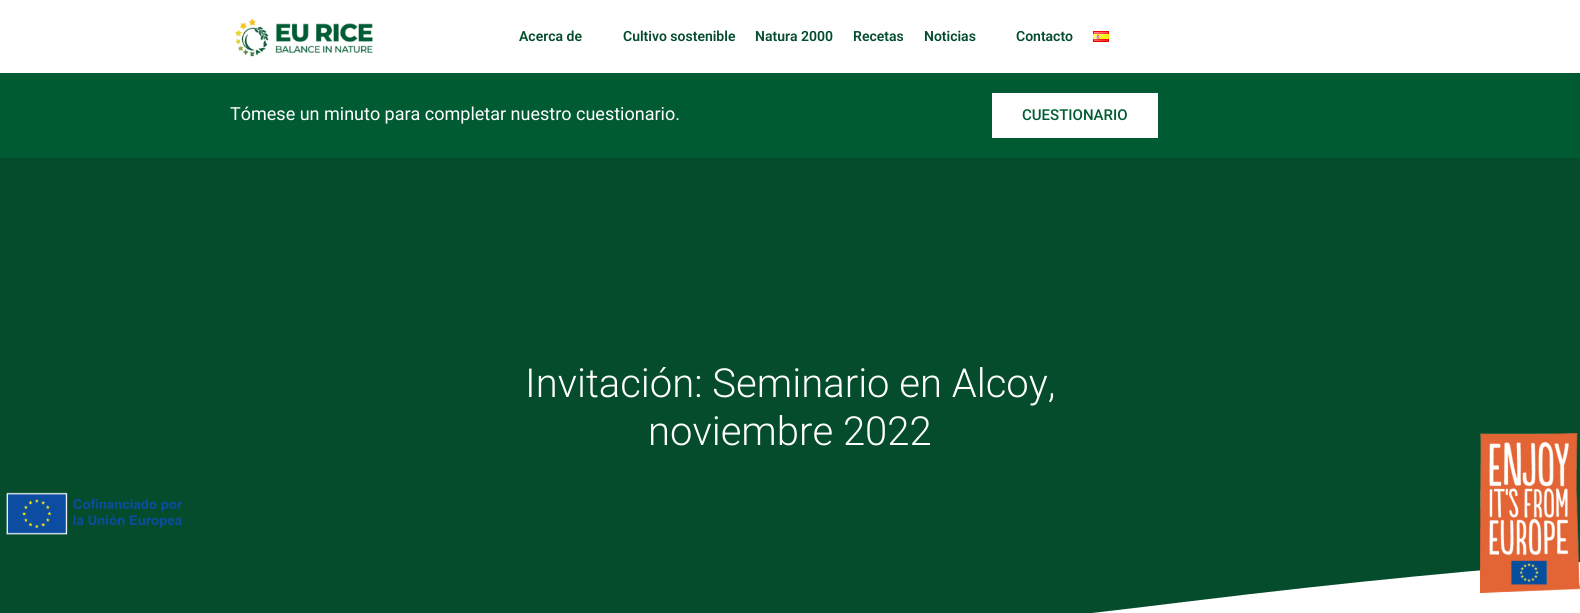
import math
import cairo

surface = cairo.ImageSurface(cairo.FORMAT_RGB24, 1580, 613)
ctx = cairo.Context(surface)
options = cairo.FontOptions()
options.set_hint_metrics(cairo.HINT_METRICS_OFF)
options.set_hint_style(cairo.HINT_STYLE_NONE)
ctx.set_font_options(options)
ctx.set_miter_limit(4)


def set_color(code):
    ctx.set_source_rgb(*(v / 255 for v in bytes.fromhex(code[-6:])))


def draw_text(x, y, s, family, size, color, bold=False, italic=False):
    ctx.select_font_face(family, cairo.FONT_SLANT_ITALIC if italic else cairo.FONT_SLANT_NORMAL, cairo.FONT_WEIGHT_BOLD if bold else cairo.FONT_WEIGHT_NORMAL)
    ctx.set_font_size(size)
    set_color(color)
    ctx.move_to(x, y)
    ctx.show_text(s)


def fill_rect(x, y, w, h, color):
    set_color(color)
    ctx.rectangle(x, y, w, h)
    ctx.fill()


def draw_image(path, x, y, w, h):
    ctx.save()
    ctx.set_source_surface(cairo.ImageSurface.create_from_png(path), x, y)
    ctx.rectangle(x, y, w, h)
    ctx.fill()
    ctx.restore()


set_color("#ffffff")
ctx.paint()
draw_image("assets/img1.png", 235, 18, 138, 39)
draw_text(519, 41, "Acerca de", "Roboto SemiBold", 14, "#044c2c")
draw_text(623, 41, "Cultivo sostenible", "Roboto SemiBold", 14, "#044c2c")
draw_text(755, 41, "Natura 2000", "Roboto SemiBold", 14, "#044c2c")
draw_text(853, 41, "Recetas", "Roboto SemiBold", 14, "#044c2c")
draw_text(924, 41, "Noticias", "Roboto SemiBold", 14, "#044c2c")
draw_text(1016, 41, "Contacto", "Roboto SemiBold", 14, "#044c2c")
draw_image("assets/img2.png", 1093, 31, 16, 11)
fill_rect(0, 73, 1580, 85, "#005b33")
draw_text(230, 120, "Tómese un minuto para completar nuestro cuestionario.", "Roboto", 18, "#ffffff")
fill_rect(992, 93, 166, 45, "#ffffff")
draw_text(1022, 120, "CUESTIONARIO", "Roboto Medium", 15, "#005b33")
fill_rect(0, 158, 1580, 455, "#044c2c")
draw_text(525, 397, "Invitación: Seminario en Alcoy,", "Roboto Light", 40, "#ffffff")
draw_text(648, 445, "noviembre 2022", "Roboto Light", 40, "#ffffff")
ctx.new_path()
ctx.move_to(469, 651)
ctx.curve_to(562, 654, 681, 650, 779, 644)
ctx.curve_to(876, 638, 1071, 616, 1192, 601)
ctx.curve_to(1504, 563, 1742, 548, 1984, 542)
ctx.curve_to(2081, 539, 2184, 538, 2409, 545)
ctx.curve_to(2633, 552, 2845, 575, 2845, 575)
ctx.line_to(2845, 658)
ctx.line_to(-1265, 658)
ctx.line_to(-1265, 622)
ctx.curve_to(-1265, 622, -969, 583, -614, 585)
ctx.curve_to(-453, 586, -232, 593, -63, 612)
ctx.curve_to(24, 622, 151, 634, 264, 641)
ctx.curve_to(376, 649, 427, 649, 469, 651)
ctx.close_path()
ctx.fill()
draw_image("assets/img3.png", 6, 492, 177, 43)
draw_image("assets/img4.png", 1480, 432, 100, 162)
surface.write_to_png("output.png")
